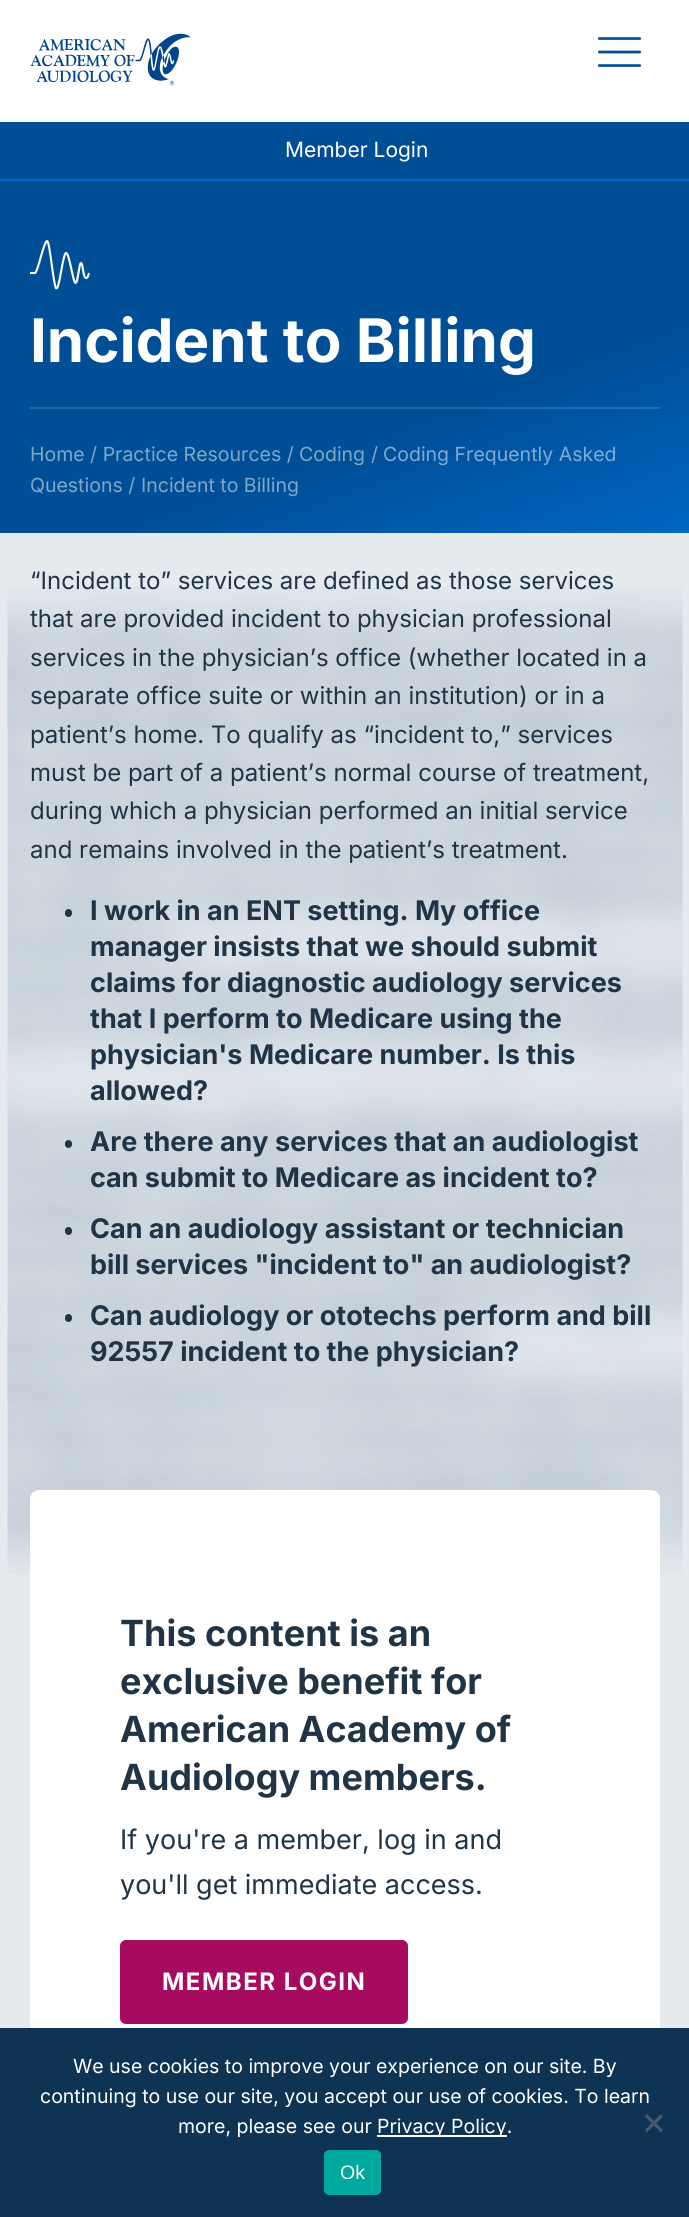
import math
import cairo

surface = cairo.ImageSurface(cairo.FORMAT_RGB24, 689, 2217)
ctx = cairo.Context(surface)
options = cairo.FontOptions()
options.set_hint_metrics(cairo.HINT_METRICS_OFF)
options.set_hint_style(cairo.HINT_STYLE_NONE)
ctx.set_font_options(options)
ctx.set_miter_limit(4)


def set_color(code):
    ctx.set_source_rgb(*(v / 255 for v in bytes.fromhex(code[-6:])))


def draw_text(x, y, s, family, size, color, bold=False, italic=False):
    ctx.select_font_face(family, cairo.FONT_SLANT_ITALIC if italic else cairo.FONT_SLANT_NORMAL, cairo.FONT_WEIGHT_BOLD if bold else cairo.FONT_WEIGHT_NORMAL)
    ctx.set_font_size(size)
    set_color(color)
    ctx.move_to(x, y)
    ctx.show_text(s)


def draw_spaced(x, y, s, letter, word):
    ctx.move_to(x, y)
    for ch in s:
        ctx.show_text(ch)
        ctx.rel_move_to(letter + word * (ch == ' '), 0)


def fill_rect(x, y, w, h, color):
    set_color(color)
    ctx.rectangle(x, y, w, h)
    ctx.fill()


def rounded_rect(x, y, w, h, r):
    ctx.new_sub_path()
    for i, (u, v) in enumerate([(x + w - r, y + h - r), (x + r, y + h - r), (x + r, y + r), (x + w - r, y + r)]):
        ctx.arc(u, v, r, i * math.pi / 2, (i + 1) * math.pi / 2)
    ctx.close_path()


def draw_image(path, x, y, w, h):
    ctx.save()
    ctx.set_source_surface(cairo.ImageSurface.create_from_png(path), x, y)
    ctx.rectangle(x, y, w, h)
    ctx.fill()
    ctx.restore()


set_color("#ffffff")
ctx.paint()
draw_image("assets/img1.png", 597, 37, 45, 30)
draw_image("assets/img2.png", 30, 33, 161, 53)
fill_rect(0, 122, 689, 57, "#004e95")
fill_rect(0, 179, 689, 2, "#006bcd")
draw_text(285, 157, "Member Login", "Inter", 21, "#ffffff")
gradient = cairo.LinearGradient(442, 623, 248, 90)
gradient.add_color_stop_rgba(0, 0, 0.4, 0.765, 1)
gradient.add_color_stop_rgba(0.35, 0, 0.306, 0.584, 1)
ctx.set_source(gradient)
ctx.rectangle(0, 181, 689, 352)
ctx.fill()
gradient = cairo.LinearGradient(442, 623, 248, 90)
gradient.add_color_stop_rgba(0, 0.141, 0.482, 0.796, 1)
gradient.add_color_stop_rgba(0.35, 0.141, 0.404, 0.643, 1)
ctx.set_source(gradient)
ctx.rectangle(30, 407, 630, 2)
ctx.fill()
ctx.new_path()
ctx.move_to(30, 273)
ctx.line_to(35, 273)
ctx.curve_to(37.5, 273, 44, 241, 47, 241)
ctx.curve_to(50, 241, 53.5, 288.5, 56.5, 288.5)
ctx.curve_to(59.5, 288.5, 63, 253, 66, 253)
ctx.curve_to(69.5, 253, 73, 283, 75.5, 283)
ctx.curve_to(78, 283, 79, 263, 81, 263)
ctx.curve_to(83, 263, 83, 278, 86, 278)
ctx.curve_to(88, 278, 88.5, 274.5, 89, 273)
set_color("#ffffff")
ctx.set_line_width(2.1)
ctx.stroke()
draw_text(30, 362, "Incident to Billing", "Inter", 60, "#ffffff", bold=True)
draw_text(30, 461, "Home / Practice Resources /", "Inter", 19.5, "#80a7ca")
draw_text(299, 461, "Coding", "Inter", 19.5, "#80a7ca")
draw_text(371, 461, "/", "Inter", 19.5, "#80a7ca")
draw_text(383, 461, "Coding Frequently Asked", "Inter", 19.5, "#80aad1")
draw_text(30, 492, "Questions /", "Inter", 19.5, "#80a7ca")
draw_text(141, 492, "Incident to Billing", "Inter", 19.5, "#80a7ca")
fill_rect(0, 533, 689, 1495, "#e5eaef")
draw_image("assets/img3.png", 7, 587, 676, 987)
draw_text(30, 589, "“Incident to” services are defined as those services", "Inter", 24, "#203446")
draw_text(30, 627, "that are provided incident to physician professional", "Inter", 24, "#203446")
draw_text(30, 666, "services in the physician’s office (whether located in a", "Inter", 24, "#203446")
draw_text(30, 704, "separate office suite or within an institution) or in a", "Inter", 24, "#203446")
draw_text(30, 743, "patient’s home. To qualify as “incident to,” services", "Inter", 24, "#203446")
draw_text(30, 781, "must be part of a patient’s normal course of treatment,", "Inter", 24, "#203446")
draw_text(30, 819, "during which a physician performed an initial service", "Inter", 24, "#203446")
draw_text(30, 858, "and remains involved in the patient’s treatment.", "Inter", 24, "#203446")
rounded_rect(65, 909, 7, 8, 3.5)
ctx.fill()
draw_text(90, 920, "I work in an ENT setting. My office", "Inter", 27, "#203446", bold=True)
draw_text(90, 956, "manager insists that we should submit", "Inter", 27, "#203446", bold=True)
draw_text(90, 992, "claims for diagnostic audiology services", "Inter", 27, "#203446", bold=True)
draw_text(90, 1028, "that I perform to Medicare using the", "Inter", 27, "#203446", bold=True)
draw_text(90, 1064, "physician's Medicare number. Is this", "Inter", 27, "#203446", bold=True)
draw_text(90, 1100, "allowed?", "Inter", 27, "#203446", bold=True)
rounded_rect(65, 1140, 7, 8, 3.5)
ctx.fill()
draw_text(90, 1151, "Are there any services that an audiologist", "Inter", 27, "#203446", bold=True)
draw_text(90, 1187, "can submit to Medicare as incident to?", "Inter", 27, "#203446", bold=True)
rounded_rect(65, 1227, 7, 8, 3.5)
ctx.fill()
draw_text(90, 1238, "Can an audiology assistant or technician", "Inter", 27, "#203446", bold=True)
draw_text(90, 1274, "bill services \"incident to\" an audiologist?", "Inter", 27, "#203446", bold=True)
rounded_rect(65, 1314, 7, 8, 3.5)
ctx.fill()
draw_text(90, 1325, "Can audiology or ototechs perform and bill", "Inter", 27, "#203446", bold=True)
draw_text(90, 1361, "92557 incident to the physician?", "Inter", 27, "#203446", bold=True)
set_color("#ffffff")
rounded_rect(30, 1490, 630, 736, 9)
ctx.fill()
draw_text(120, 1646, "This content is an", "Inter", 36, "#203446", bold=True)
draw_text(120, 1694, "exclusive benefit for", "Inter", 36, "#203446", bold=True)
draw_text(120, 1742, "American Academy of", "Inter", 36, "#203446", bold=True)
draw_text(120, 1790, "Audiology members.", "Inter", 36, "#203446", bold=True)
draw_text(120, 1849, "If you're a member, log in and", "Inter", 27, "#203446")
draw_text(120, 1894, "you'll get immediate access.", "Inter", 27, "#203446")
set_color("#a60b5f")
rounded_rect(120, 1940, 288, 84, 6)
ctx.fill()
ctx.select_font_face("Inter", cairo.FONT_SLANT_NORMAL, cairo.FONT_WEIGHT_BOLD)
ctx.set_font_size(24)
set_color("#ffffff")
draw_spaced(162, 1990, "MEMBER LOGIN", 1.5, 0)
fill_rect(0, 2028, 689, 189, "#0e3353")
draw_text(73, 2073, "We use cookies to improve your experience on our site. By", "Inter", 19.5, "#ffffff")
draw_text(40, 2103, "continuing to use our site, you accept our use of cookies. To learn", "Inter", 19.5, "#ffffff")
draw_text(178, 2133, "more, please see our", "Inter", 19.5, "#ffffff")
fill_rect(377, 2135, 130, 2, "#ffffff")
draw_text(377, 2133, "Privacy Policy.", "Inter", 19.5, "#ffffff")
set_color("#475a6a")
ctx.new_path()
ctx.move_to(661, 2114)
ctx.line_to(663, 2116.5)
ctx.line_to(647, 2132.5)
ctx.line_to(645, 2130)
ctx.close_path()
ctx.fill()
ctx.new_path()
ctx.move_to(645, 2116.5)
ctx.line_to(647, 2114)
ctx.line_to(663, 2130)
ctx.line_to(661, 2132.5)
ctx.close_path()
ctx.fill()
set_color("#00a99d")
rounded_rect(324, 2150, 57, 45, 5)
ctx.fill()
draw_text(340, 2179, "Ok", "Liberation Sans", 19.5, "#ffffff")
surface.write_to_png("output.png")
